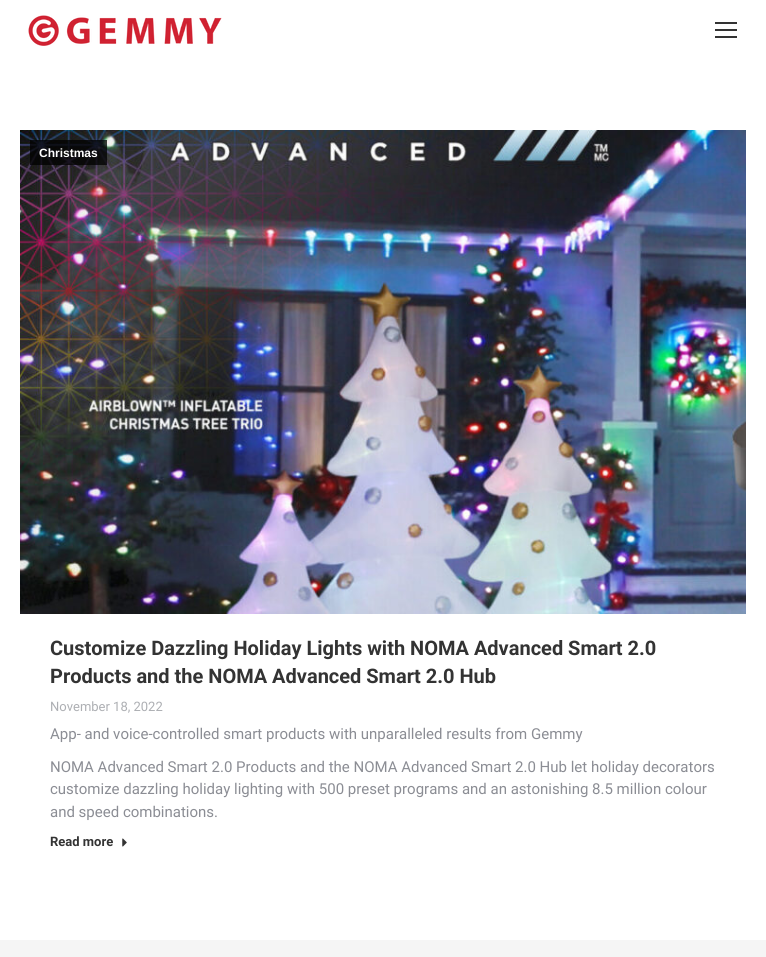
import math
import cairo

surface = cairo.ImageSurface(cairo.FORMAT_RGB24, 766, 957)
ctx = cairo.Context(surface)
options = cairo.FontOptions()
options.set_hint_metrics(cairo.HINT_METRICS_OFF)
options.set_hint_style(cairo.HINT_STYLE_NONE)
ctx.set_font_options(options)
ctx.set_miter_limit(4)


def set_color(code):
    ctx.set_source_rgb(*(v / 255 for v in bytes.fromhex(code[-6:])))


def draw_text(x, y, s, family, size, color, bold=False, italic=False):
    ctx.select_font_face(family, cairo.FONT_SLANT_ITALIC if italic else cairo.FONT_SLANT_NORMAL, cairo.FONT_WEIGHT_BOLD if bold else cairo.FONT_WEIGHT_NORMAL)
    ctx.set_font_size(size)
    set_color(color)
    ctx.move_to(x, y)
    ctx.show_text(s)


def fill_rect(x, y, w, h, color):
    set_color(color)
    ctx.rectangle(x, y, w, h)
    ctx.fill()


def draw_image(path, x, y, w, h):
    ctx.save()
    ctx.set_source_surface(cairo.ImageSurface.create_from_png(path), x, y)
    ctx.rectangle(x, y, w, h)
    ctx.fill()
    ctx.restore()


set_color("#ffffff")
ctx.paint()
draw_image("assets/img1.png", 28, 15, 194, 31)
fill_rect(715, 22, 22, 2, "#333333")
fill_rect(715, 29, 22, 2, "#333333")
fill_rect(715, 36, 22, 2, "#333333")
draw_image("assets/img2.png", 20, 130, 726, 484)
ctx.set_source_rgba(0, 0, 0, 0.75)
ctx.rectangle(30, 140, 77, 25)
ctx.fill()
draw_text(39, 157, "Christmas", "Liberation Sans", 12, "#ffffff", bold=True)
draw_text(50, 655, "Customize Dazzling Holiday Lights with NOMA Advanced Smart 2.0", "Roboto", 20, "#333333", bold=True)
draw_text(50, 683, "Products and the NOMA Advanced Smart 2.0 Hub", "Roboto", 20, "#333333", bold=True)
draw_text(50, 711, "November 18, 2022", "Roboto", 13, "#adafb3")
draw_text(50, 739, "App- and voice-controlled smart products with unparalleled results from Gemmy", "Roboto", 15, "#8b8d94")
draw_text(50, 772, "NOMA Advanced Smart 2.0 Products and the NOMA Advanced Smart 2.0 Hub let holiday decorators", "Roboto", 15, "#8b8d94")
draw_text(50, 794, "customize dazzling holiday lighting with 500 preset programs and an astonishing 8.5 million colour", "Roboto", 15, "#8b8d94")
draw_text(50, 817, "and speed combinations.", "Roboto", 15, "#8b8d94")
draw_text(50, 846, "Read more", "Roboto", 13, "#333333", bold=True)
draw_image("assets/img3.png", 122, 838, 5, 9)
fill_rect(0, 940, 766, 17, "#f5f5f5")
surface.write_to_png("output.png")
